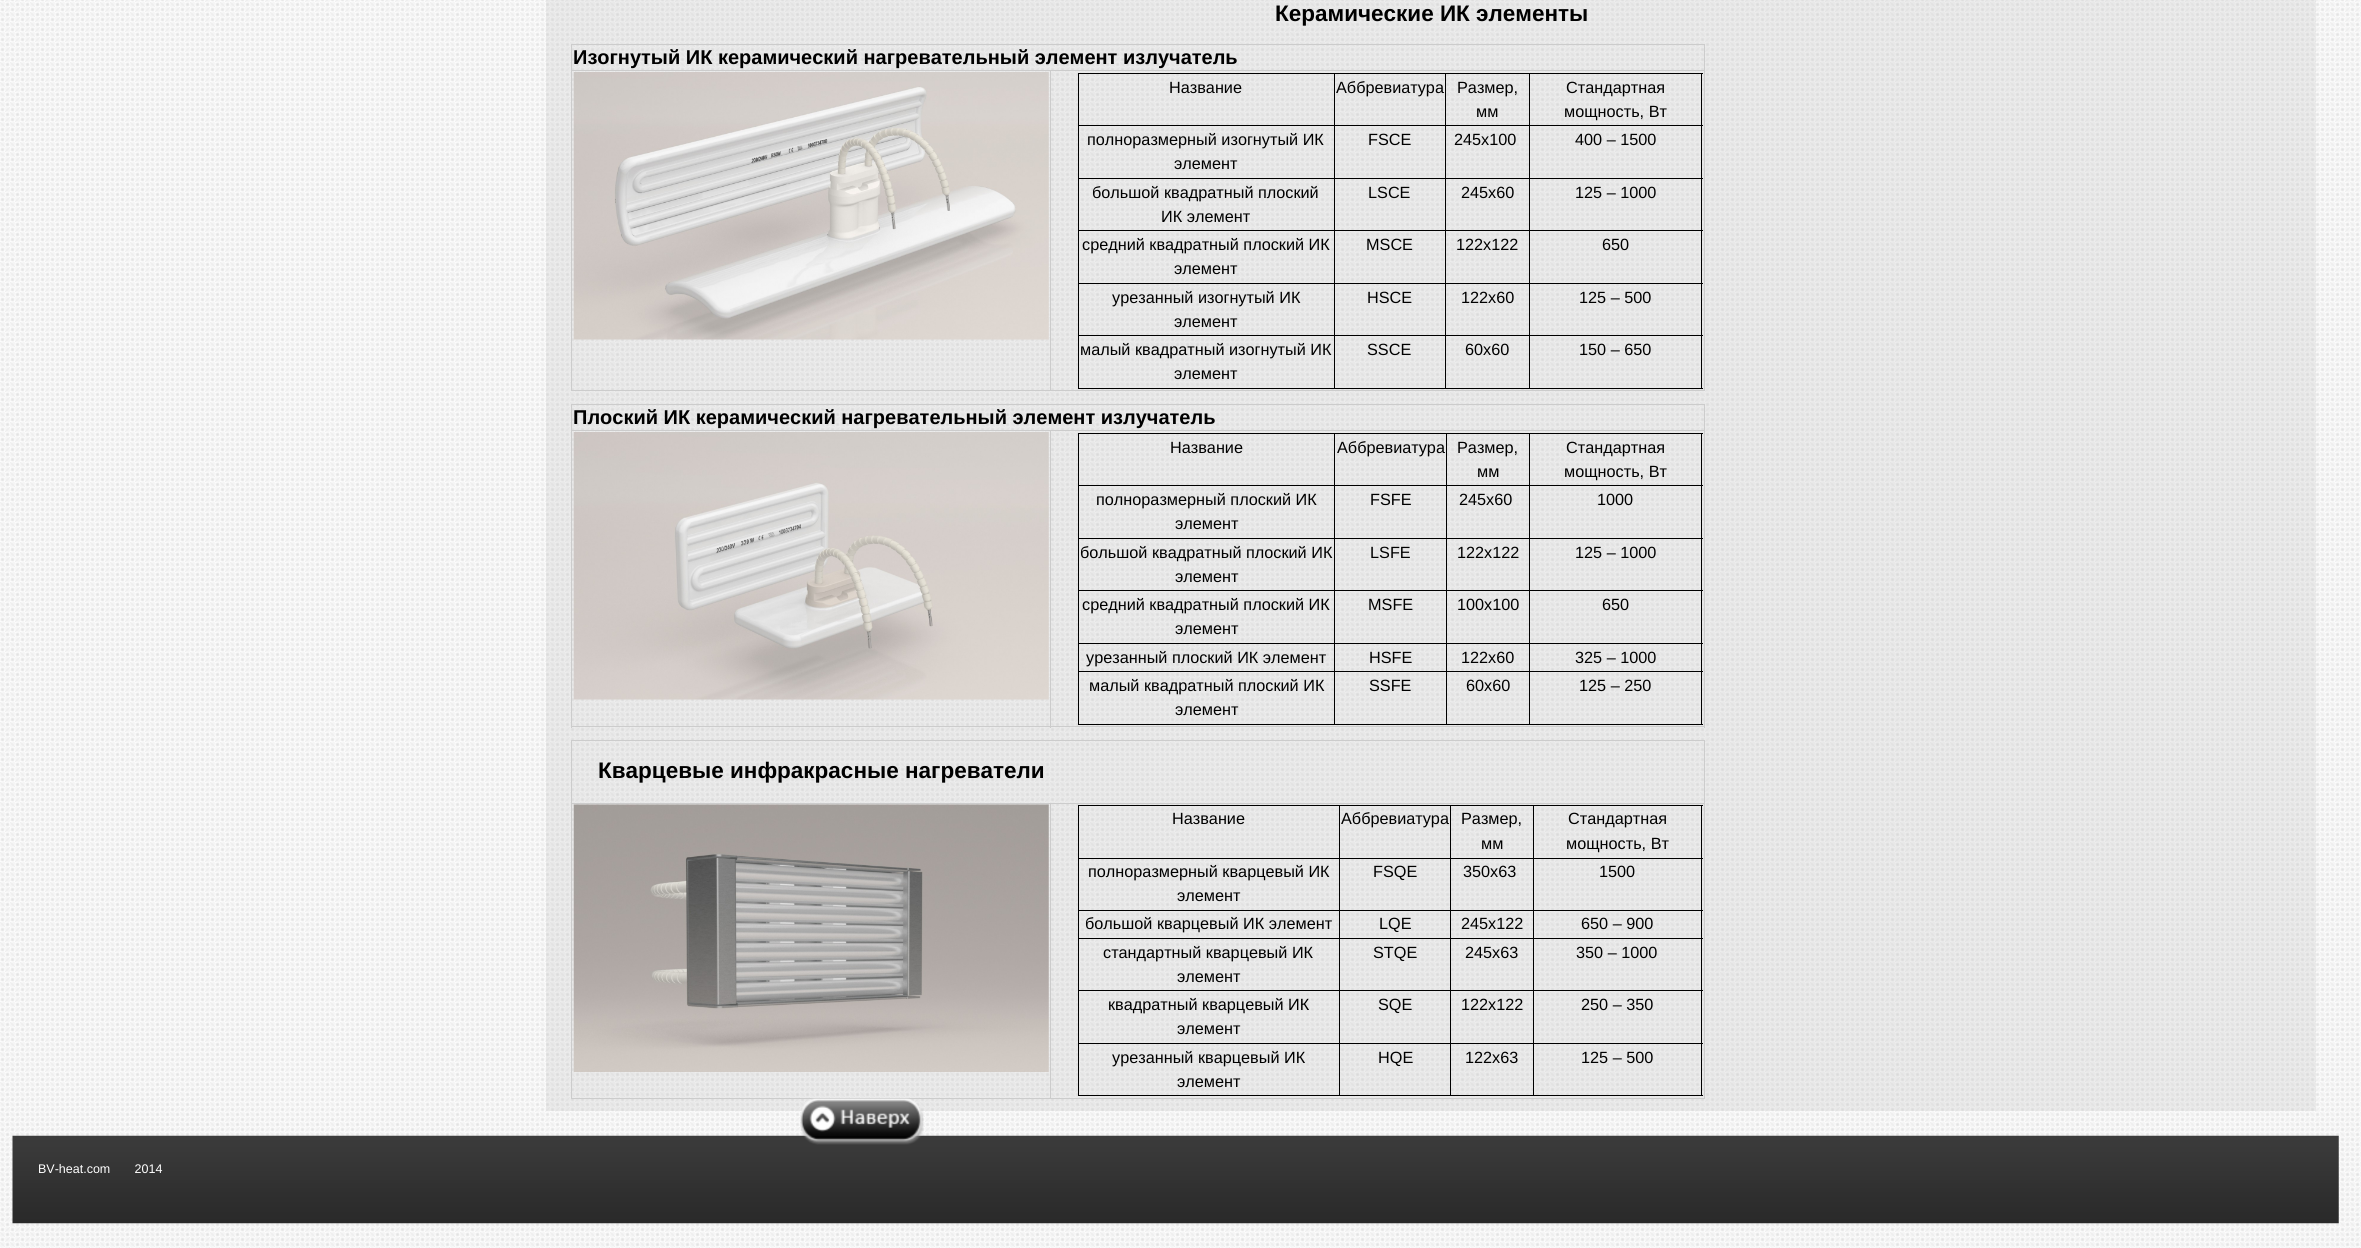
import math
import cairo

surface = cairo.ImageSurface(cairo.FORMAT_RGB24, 2361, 1248)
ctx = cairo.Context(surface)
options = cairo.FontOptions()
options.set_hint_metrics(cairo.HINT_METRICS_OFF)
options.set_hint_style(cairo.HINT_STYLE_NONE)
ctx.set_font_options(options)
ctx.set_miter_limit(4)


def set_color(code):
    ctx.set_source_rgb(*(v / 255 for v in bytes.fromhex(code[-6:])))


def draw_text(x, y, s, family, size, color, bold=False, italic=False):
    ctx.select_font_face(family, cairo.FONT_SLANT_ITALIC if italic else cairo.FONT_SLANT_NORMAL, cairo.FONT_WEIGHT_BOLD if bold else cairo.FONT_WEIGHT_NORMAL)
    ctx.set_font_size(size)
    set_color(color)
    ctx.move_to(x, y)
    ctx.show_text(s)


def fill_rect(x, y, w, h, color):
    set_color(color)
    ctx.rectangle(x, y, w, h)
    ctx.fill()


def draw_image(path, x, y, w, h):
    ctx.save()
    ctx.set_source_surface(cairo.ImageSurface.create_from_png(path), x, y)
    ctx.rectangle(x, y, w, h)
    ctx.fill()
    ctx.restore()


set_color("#ffffff")
ctx.paint()
draw_image("assets/img1.png", 0, 0, 2361, 1248)
ctx.set_source_rgba(0.765, 0.765, 0.765, 0.25)
ctx.rectangle(546, 0, 1770, 1111)
ctx.fill()
draw_text(1275, 21, "Керамические ИК элементы", "Liberation Sans", 22.5, "#000000", bold=True)
fill_rect(571, 44, 1134, 1, "#cccccc")
fill_rect(1704, 44, 1, 347, "#cccccc")
fill_rect(571, 390, 1134, 1, "#cccccc")
fill_rect(571, 44, 1, 347, "#cccccc")
draw_text(573, 64, "Изогнутый ИК керамический нагревательный элемент излучатель", "Liberation Sans", 20, "#000000", bold=True)
fill_rect(1050, 70, 655, 1, "#cccccc")
fill_rect(1050, 70, 1, 321, "#cccccc")
fill_rect(571, 70, 480, 1, "#cccccc")
draw_image("assets/img2.png", 573, 72, 476, 268)
fill_rect(1078, 73, 625, 1, "#000000")
fill_rect(1701, 73, 1, 316, "#000000")
fill_rect(1078, 388, 625, 1, "#000000")
fill_rect(1078, 73, 1, 316, "#000000")
draw_text(1169, 93, "Название", "Liberation Sans", 16.25, "#000000")
fill_rect(1529, 125, 174, 1, "#000000")
fill_rect(1529, 178, 174, 1, "#000000")
fill_rect(1529, 230, 174, 1, "#000000")
fill_rect(1529, 283, 174, 1, "#000000")
fill_rect(1529, 335, 174, 1, "#000000")
fill_rect(1529, 335, 1, 54, "#000000")
fill_rect(1445, 335, 85, 1, "#000000")
fill_rect(1529, 283, 1, 53, "#000000")
fill_rect(1445, 283, 85, 1, "#000000")
fill_rect(1529, 230, 1, 54, "#000000")
fill_rect(1445, 230, 85, 1, "#000000")
fill_rect(1529, 178, 1, 53, "#000000")
fill_rect(1445, 178, 85, 1, "#000000")
fill_rect(1529, 125, 1, 54, "#000000")
fill_rect(1445, 125, 85, 1, "#000000")
fill_rect(1445, 335, 1, 54, "#000000")
fill_rect(1334, 335, 112, 1, "#000000")
fill_rect(1445, 283, 1, 53, "#000000")
fill_rect(1334, 283, 112, 1, "#000000")
fill_rect(1445, 230, 1, 54, "#000000")
fill_rect(1334, 230, 112, 1, "#000000")
fill_rect(1445, 178, 1, 53, "#000000")
fill_rect(1334, 178, 112, 1, "#000000")
fill_rect(1445, 125, 1, 54, "#000000")
fill_rect(1334, 125, 112, 1, "#000000")
fill_rect(1334, 335, 1, 54, "#000000")
fill_rect(1078, 335, 257, 1, "#000000")
fill_rect(1334, 283, 1, 53, "#000000")
fill_rect(1078, 283, 257, 1, "#000000")
fill_rect(1334, 230, 1, 54, "#000000")
fill_rect(1078, 230, 257, 1, "#000000")
fill_rect(1334, 178, 1, 53, "#000000")
fill_rect(1078, 178, 257, 1, "#000000")
fill_rect(1334, 125, 1, 54, "#000000")
fill_rect(1078, 125, 257, 1, "#000000")
fill_rect(1334, 73, 1, 53, "#000000")
draw_text(1336, 93, "Аббревиатура", "Liberation Sans", 16.25, "#000000")
fill_rect(1445, 73, 1, 53, "#000000")
draw_text(1457, 93, "Размер,", "Liberation Sans", 16.25, "#000000")
draw_text(1476, 117, "мм", "Liberation Sans", 16.25, "#000000")
fill_rect(1529, 73, 1, 53, "#000000")
draw_text(1566, 93, "Стандартная", "Liberation Sans", 16.25, "#000000")
draw_text(1564, 117, "мощность, Вт", "Liberation Sans", 16.25, "#000000")
draw_text(1087, 145, "полноразмерный изогнутый ИК", "Liberation Sans", 16.25, "#000000")
draw_text(1174, 169, "элемент", "Liberation Sans", 16.25, "#000000")
draw_text(1368, 145, "FSСE", "Liberation Sans", 16.25, "#000000")
draw_text(1454, 145, "245х100", "Liberation Sans", 16.25, "#000000")
draw_text(1575, 145, "400 – 1500", "Liberation Sans", 16.25, "#000000")
draw_text(1092, 198, "большой квадратный плоский", "Liberation Sans", 16.25, "#000000")
draw_text(1161, 222, "ИК элемент", "Liberation Sans", 16.25, "#000000")
draw_text(1368, 198, "LSСE", "Liberation Sans", 16.25, "#000000")
draw_text(1461, 198, "245x60", "Liberation Sans", 16.25, "#000000")
draw_text(1575, 198, "125 – 1000", "Liberation Sans", 16.25, "#000000")
draw_text(1082, 250, "средний квадратный плоский ИК", "Liberation Sans", 16.25, "#000000")
draw_text(1174, 274, "элемент", "Liberation Sans", 16.25, "#000000")
draw_text(1366, 250, "MSСE", "Liberation Sans", 16.25, "#000000")
draw_text(1456, 250, "122х122", "Liberation Sans", 16.25, "#000000")
draw_text(1602, 250, "650", "Liberation Sans", 16.25, "#000000")
draw_text(1112, 303, "урезанный изогнутый ИК", "Liberation Sans", 16.25, "#000000")
draw_text(1174, 327, "элемент", "Liberation Sans", 16.25, "#000000")
draw_text(1367, 303, "HSСE", "Liberation Sans", 16.25, "#000000")
draw_text(1461, 303, "122х60", "Liberation Sans", 16.25, "#000000")
draw_text(1579, 303, "125 – 500", "Liberation Sans", 16.25, "#000000")
draw_text(1080, 355, "малый квадратный изогнутый ИК", "Liberation Sans", 16.25, "#000000")
draw_text(1174, 379, "элемент", "Liberation Sans", 16.25, "#000000")
draw_text(1367, 355, "SSСE", "Liberation Sans", 16.25, "#000000")
draw_text(1465, 355, "60х60", "Liberation Sans", 16.25, "#000000")
draw_text(1579, 355, "150 – 650", "Liberation Sans", 16.25, "#000000")
fill_rect(571, 404, 1134, 1, "#cccccc")
fill_rect(1704, 404, 1, 324, "#cccccc")
fill_rect(571, 726, 1134, 1, "#cccccc")
fill_rect(571, 404, 1, 324, "#cccccc")
draw_text(573, 424, "Плоский ИК керамический нагревательный элемент излучатель", "Liberation Sans", 20, "#000000", bold=True)
fill_rect(1050, 430, 655, 1, "#cccccc")
fill_rect(1050, 430, 1, 298, "#cccccc")
fill_rect(571, 430, 480, 1, "#cccccc")
draw_image("assets/img3.png", 573, 432, 476, 268)
fill_rect(1529, 433, 174, 1, "#000000")
fill_rect(1529, 485, 174, 1, "#000000")
fill_rect(1529, 538, 174, 1, "#000000")
fill_rect(1529, 590, 174, 1, "#000000")
fill_rect(1529, 643, 174, 1, "#000000")
fill_rect(1529, 671, 174, 1, "#000000")
fill_rect(1701, 671, 1, 54, "#000000")
fill_rect(1529, 724, 174, 1, "#000000")
fill_rect(1529, 671, 1, 54, "#000000")
fill_rect(1446, 671, 84, 1, "#000000")
fill_rect(1529, 643, 1, 30, "#000000")
fill_rect(1446, 643, 84, 1, "#000000")
fill_rect(1529, 590, 1, 54, "#000000")
fill_rect(1446, 590, 84, 1, "#000000")
fill_rect(1529, 538, 1, 53, "#000000")
fill_rect(1446, 538, 84, 1, "#000000")
fill_rect(1529, 485, 1, 54, "#000000")
fill_rect(1446, 485, 84, 1, "#000000")
fill_rect(1529, 433, 1, 53, "#000000")
fill_rect(1446, 433, 84, 1, "#000000")
fill_rect(1446, 724, 84, 1, "#000000")
fill_rect(1446, 671, 1, 54, "#000000")
fill_rect(1334, 671, 114, 1, "#000000")
fill_rect(1446, 643, 1, 30, "#000000")
fill_rect(1334, 643, 114, 1, "#000000")
fill_rect(1446, 590, 1, 54, "#000000")
fill_rect(1334, 590, 114, 1, "#000000")
fill_rect(1446, 538, 1, 53, "#000000")
fill_rect(1334, 538, 114, 1, "#000000")
fill_rect(1446, 485, 1, 54, "#000000")
fill_rect(1334, 485, 114, 1, "#000000")
fill_rect(1446, 433, 1, 53, "#000000")
fill_rect(1334, 433, 114, 1, "#000000")
fill_rect(1334, 724, 114, 1, "#000000")
fill_rect(1334, 671, 1, 54, "#000000")
fill_rect(1078, 671, 257, 1, "#000000")
fill_rect(1334, 643, 1, 30, "#000000")
fill_rect(1078, 643, 257, 1, "#000000")
fill_rect(1334, 590, 1, 54, "#000000")
fill_rect(1078, 590, 257, 1, "#000000")
fill_rect(1334, 538, 1, 53, "#000000")
fill_rect(1078, 538, 257, 1, "#000000")
fill_rect(1334, 485, 1, 54, "#000000")
fill_rect(1078, 485, 257, 1, "#000000")
fill_rect(1334, 433, 1, 53, "#000000")
fill_rect(1078, 433, 257, 1, "#000000")
fill_rect(1078, 724, 257, 1, "#000000")
fill_rect(1078, 671, 1, 54, "#000000")
fill_rect(1078, 643, 1, 30, "#000000")
fill_rect(1078, 590, 1, 54, "#000000")
fill_rect(1078, 538, 1, 53, "#000000")
fill_rect(1078, 485, 1, 54, "#000000")
fill_rect(1078, 433, 1, 53, "#000000")
draw_text(1170, 453, "Название", "Liberation Sans", 16.25, "#000000")
draw_text(1337, 453, "Аббревиатура", "Liberation Sans", 16.25, "#000000")
draw_text(1457, 453, "Размер,", "Liberation Sans", 16.25, "#000000")
draw_text(1477, 477, "мм", "Liberation Sans", 16.25, "#000000")
fill_rect(1701, 643, 1, 30, "#000000")
fill_rect(1701, 590, 1, 54, "#000000")
fill_rect(1701, 538, 1, 53, "#000000")
fill_rect(1701, 485, 1, 54, "#000000")
fill_rect(1701, 433, 1, 53, "#000000")
draw_text(1566, 453, "Стандартная", "Liberation Sans", 16.25, "#000000")
draw_text(1564, 477, "мощность, Вт", "Liberation Sans", 16.25, "#000000")
draw_text(1096, 505, "полноразмерный плоский ИК", "Liberation Sans", 16.25, "#000000")
draw_text(1175, 529, "элемент", "Liberation Sans", 16.25, "#000000")
draw_text(1370, 505, "FSFE", "Liberation Sans", 16.25, "#000000")
draw_text(1459, 505, "245х60", "Liberation Sans", 16.25, "#000000")
draw_text(1597, 505, "1000", "Liberation Sans", 16.25, "#000000")
draw_text(1080, 558, "большой квадратный плоский ИК", "Liberation Sans", 16.25, "#000000")
draw_text(1175, 582, "элемент", "Liberation Sans", 16.25, "#000000")
draw_text(1370, 558, "LSFE", "Liberation Sans", 16.25, "#000000")
draw_text(1457, 558, "122x122", "Liberation Sans", 16.25, "#000000")
draw_text(1575, 558, "125 – 1000", "Liberation Sans", 16.25, "#000000")
draw_text(1082, 610, "средний квадратный плоский ИК", "Liberation Sans", 16.25, "#000000")
draw_text(1175, 634, "элемент", "Liberation Sans", 16.25, "#000000")
draw_text(1368, 610, "MSFE", "Liberation Sans", 16.25, "#000000")
draw_text(1457, 610, "100х100", "Liberation Sans", 16.25, "#000000")
draw_text(1602, 610, "650", "Liberation Sans", 16.25, "#000000")
draw_text(1086, 663, "урезанный плоский ИК элемент", "Liberation Sans", 16.25, "#000000")
draw_text(1369, 663, "HSFE", "Liberation Sans", 16.25, "#000000")
draw_text(1461, 663, "122х60", "Liberation Sans", 16.25, "#000000")
draw_text(1575, 663, "325 – 1000", "Liberation Sans", 16.25, "#000000")
draw_text(1089, 691, "малый квадратный плоский ИК", "Liberation Sans", 16.25, "#000000")
draw_text(1175, 715, "элемент", "Liberation Sans", 16.25, "#000000")
draw_text(1369, 691, "SSFE", "Liberation Sans", 16.25, "#000000")
draw_text(1466, 691, "60х60", "Liberation Sans", 16.25, "#000000")
draw_text(1579, 691, "125 – 250", "Liberation Sans", 16.25, "#000000")
fill_rect(571, 740, 1134, 1, "#cccccc")
fill_rect(1704, 740, 1, 359, "#cccccc")
fill_rect(571, 1098, 1134, 1, "#cccccc")
fill_rect(571, 740, 1, 359, "#cccccc")
draw_text(598, 778, "Кварцевые инфракрасные нагреватели", "Liberation Sans", 22.5, "#000000", bold=True)
fill_rect(1050, 803, 655, 1, "#cccccc")
fill_rect(1050, 803, 1, 296, "#cccccc")
fill_rect(571, 803, 480, 1, "#cccccc")
draw_image("assets/img4.png", 573, 804, 476, 268)
fill_rect(1078, 805, 625, 1, "#000000")
fill_rect(1701, 805, 1, 291, "#000000")
fill_rect(1078, 1095, 625, 1, "#000000")
fill_rect(1078, 805, 1, 291, "#000000")
draw_text(1172, 824, "Название", "Liberation Sans", 16.25, "#000000")
fill_rect(1533, 858, 170, 1, "#000000")
fill_rect(1533, 910, 170, 1, "#000000")
fill_rect(1533, 938, 170, 1, "#000000")
fill_rect(1533, 990, 170, 1, "#000000")
fill_rect(1533, 1043, 170, 1, "#000000")
fill_rect(1533, 1043, 1, 53, "#000000")
fill_rect(1450, 1043, 84, 1, "#000000")
fill_rect(1533, 990, 1, 54, "#000000")
fill_rect(1450, 990, 84, 1, "#000000")
fill_rect(1533, 938, 1, 53, "#000000")
fill_rect(1450, 938, 84, 1, "#000000")
fill_rect(1533, 910, 1, 29, "#000000")
fill_rect(1450, 910, 84, 1, "#000000")
fill_rect(1533, 858, 1, 53, "#000000")
fill_rect(1450, 858, 84, 1, "#000000")
fill_rect(1450, 1043, 1, 53, "#000000")
fill_rect(1339, 1043, 112, 1, "#000000")
fill_rect(1450, 990, 1, 54, "#000000")
fill_rect(1339, 990, 112, 1, "#000000")
fill_rect(1450, 938, 1, 53, "#000000")
fill_rect(1339, 938, 112, 1, "#000000")
fill_rect(1450, 910, 1, 29, "#000000")
fill_rect(1339, 910, 112, 1, "#000000")
fill_rect(1450, 858, 1, 53, "#000000")
fill_rect(1339, 858, 112, 1, "#000000")
fill_rect(1339, 1043, 1, 53, "#000000")
fill_rect(1078, 1043, 262, 1, "#000000")
fill_rect(1339, 990, 1, 54, "#000000")
fill_rect(1078, 990, 262, 1, "#000000")
fill_rect(1339, 938, 1, 53, "#000000")
fill_rect(1078, 938, 262, 1, "#000000")
fill_rect(1339, 910, 1, 29, "#000000")
fill_rect(1078, 910, 262, 1, "#000000")
fill_rect(1339, 858, 1, 53, "#000000")
fill_rect(1078, 858, 262, 1, "#000000")
fill_rect(1339, 805, 1, 54, "#000000")
draw_text(1341, 824, "Аббревиатура", "Liberation Sans", 16.25, "#000000")
fill_rect(1450, 805, 1, 54, "#000000")
draw_text(1461, 824, "Размер,", "Liberation Sans", 16.25, "#000000")
draw_text(1481, 849, "мм", "Liberation Sans", 16.25, "#000000")
fill_rect(1533, 805, 1, 54, "#000000")
draw_text(1568, 824, "Стандартная", "Liberation Sans", 16.25, "#000000")
draw_text(1566, 849, "мощность, Вт", "Liberation Sans", 16.25, "#000000")
draw_text(1088, 877, "полноразмерный кварцевый ИК", "Liberation Sans", 16.25, "#000000")
draw_text(1177, 901, "элемент", "Liberation Sans", 16.25, "#000000")
draw_text(1373, 877, "FSQE", "Liberation Sans", 16.25, "#000000")
draw_text(1463, 877, "350х63", "Liberation Sans", 16.25, "#000000")
draw_text(1599, 877, "1500", "Liberation Sans", 16.25, "#000000")
draw_text(1085, 929, "большой кварцевый ИК элемент", "Liberation Sans", 16.25, "#000000")
draw_text(1379, 929, "LQE", "Liberation Sans", 16.25, "#000000")
draw_text(1461, 929, "245x122", "Liberation Sans", 16.25, "#000000")
draw_text(1581, 929, "650 – 900", "Liberation Sans", 16.25, "#000000")
draw_text(1103, 958, "стандартный кварцевый ИК", "Liberation Sans", 16.25, "#000000")
draw_text(1177, 982, "элемент", "Liberation Sans", 16.25, "#000000")
draw_text(1373, 958, "STQE", "Liberation Sans", 16.25, "#000000")
draw_text(1465, 958, "245х63", "Liberation Sans", 16.25, "#000000")
draw_text(1576, 958, "350 – 1000", "Liberation Sans", 16.25, "#000000")
draw_text(1108, 1010, "квадратный кварцевый ИК", "Liberation Sans", 16.25, "#000000")
draw_text(1177, 1034, "элемент", "Liberation Sans", 16.25, "#000000")
draw_text(1378, 1010, "SQE", "Liberation Sans", 16.25, "#000000")
draw_text(1461, 1010, "122х122", "Liberation Sans", 16.25, "#000000")
draw_text(1581, 1010, "250 – 350", "Liberation Sans", 16.25, "#000000")
draw_text(1112, 1063, "урезанный кварцевый ИК", "Liberation Sans", 16.25, "#000000")
draw_text(1177, 1087, "элемент", "Liberation Sans", 16.25, "#000000")
draw_text(1378, 1063, "HQE", "Liberation Sans", 16.25, "#000000")
draw_text(1465, 1063, "122х63", "Liberation Sans", 16.25, "#000000")
draw_text(1581, 1063, "125 – 500", "Liberation Sans", 16.25, "#000000")
draw_image("assets/img6.png", 12, 1135, 2327, 89)
draw_image("assets/img5.png", 800, 1098, 124, 47)
draw_text(38, 1173, "BV-heat.com       2014", "Liberation Sans", 12.5, "#ffffff")
surface.write_to_png("output.png")
